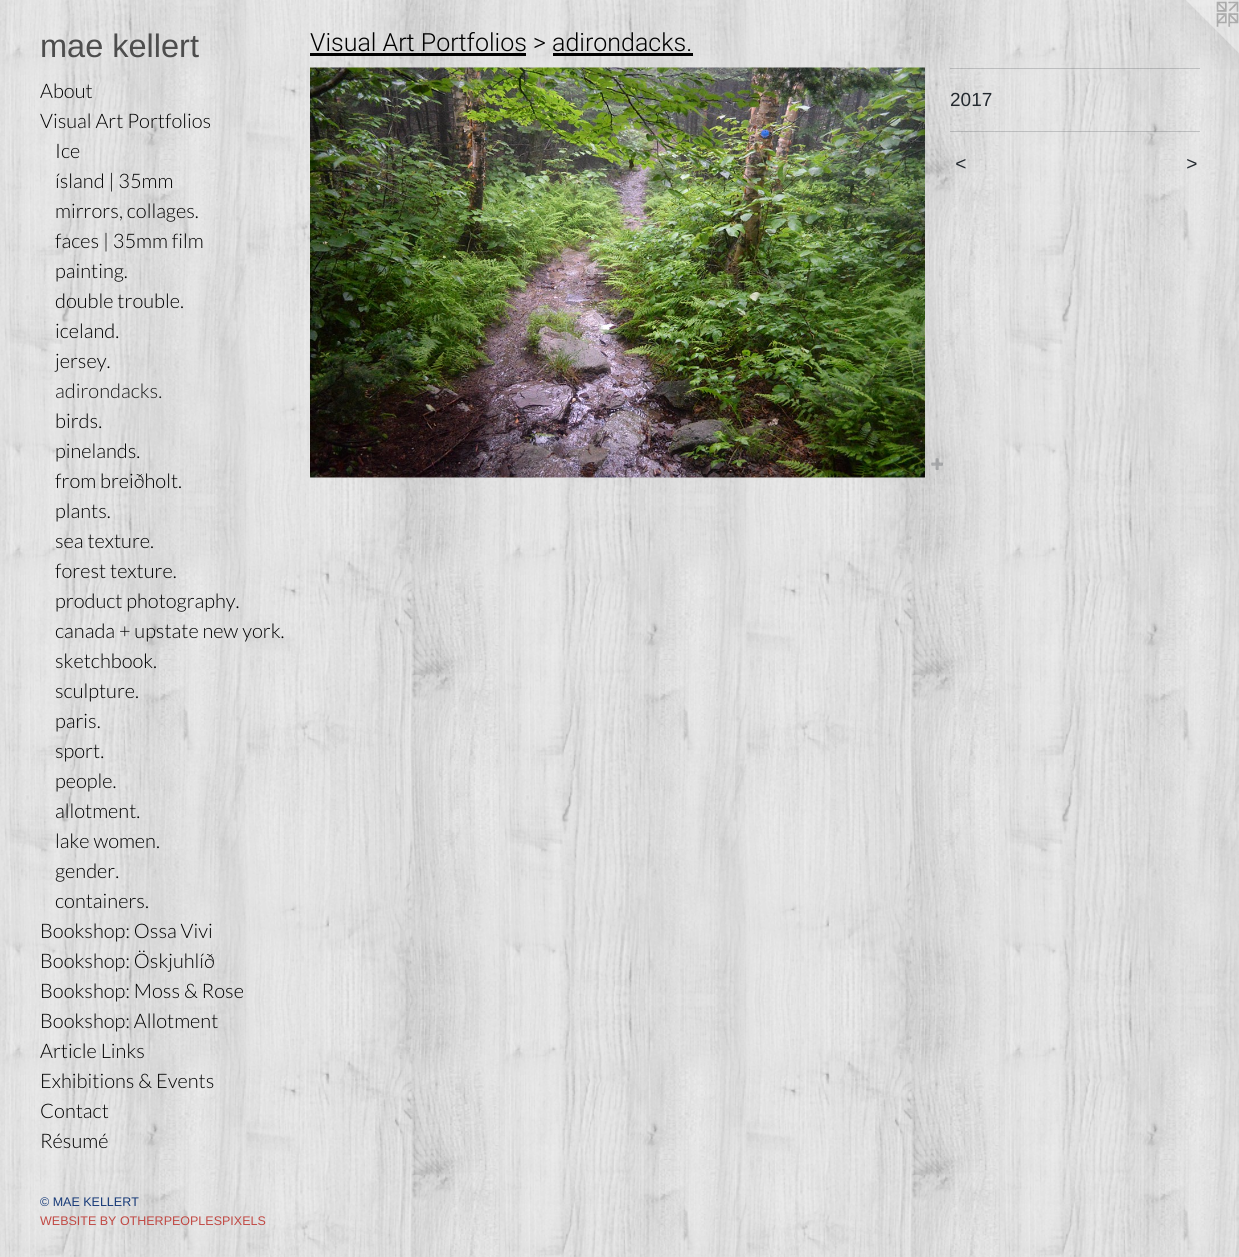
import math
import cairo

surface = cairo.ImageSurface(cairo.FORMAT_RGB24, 1239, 1257)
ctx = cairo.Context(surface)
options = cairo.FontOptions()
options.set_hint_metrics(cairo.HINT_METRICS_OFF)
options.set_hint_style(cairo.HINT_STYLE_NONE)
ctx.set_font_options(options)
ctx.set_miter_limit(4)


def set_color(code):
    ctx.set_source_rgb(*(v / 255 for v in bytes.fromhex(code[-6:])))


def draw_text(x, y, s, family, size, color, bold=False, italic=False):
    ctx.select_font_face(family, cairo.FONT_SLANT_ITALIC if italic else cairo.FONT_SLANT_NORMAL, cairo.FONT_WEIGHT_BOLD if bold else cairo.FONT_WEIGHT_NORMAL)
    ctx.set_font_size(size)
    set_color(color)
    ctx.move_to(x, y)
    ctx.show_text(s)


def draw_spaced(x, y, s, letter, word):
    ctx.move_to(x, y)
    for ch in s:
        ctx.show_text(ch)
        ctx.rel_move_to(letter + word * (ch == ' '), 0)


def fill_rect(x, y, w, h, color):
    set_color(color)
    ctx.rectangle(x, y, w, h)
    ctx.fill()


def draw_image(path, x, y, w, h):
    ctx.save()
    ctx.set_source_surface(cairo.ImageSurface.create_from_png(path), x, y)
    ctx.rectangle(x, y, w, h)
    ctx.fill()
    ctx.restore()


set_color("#ffffff")
ctx.paint()
draw_image("assets/img1.png", 0, 0, 1239, 1257)
draw_text(40, 57, "mae kellert", "Arimo", 32.5, "#4d4d4d")
draw_text(40, 98, "About", "Lato Light", 20, "#000000")
draw_text(40, 128, "Visual Art Portfolios", "Lato Light", 20, "#000000")
draw_text(55, 158, "Ice", "Lato Light", 20, "#000000")
draw_text(55, 188, "ísland | 35mm", "Lato Light", 20, "#000000")
draw_text(55, 218, "mirrors, collages.", "Lato Light", 20, "#000000")
draw_text(55, 248, "faces | 35mm film", "Lato Light", 20, "#000000")
draw_text(55, 278, "painting.", "Lato Light", 20, "#000000")
draw_text(55, 308, "double trouble.", "Lato Light", 20, "#000000")
draw_text(55, 338, "iceland.", "Lato Light", 20, "#000000")
draw_text(55, 368, "jersey.", "Lato Light", 20, "#000000")
draw_text(55, 398, "adirondacks.", "Lato Light", 20, "#1a1a1a")
draw_text(55, 428, "birds.", "Lato Light", 20, "#000000")
draw_text(55, 458, "pinelands.", "Lato Light", 20, "#000000")
draw_text(55, 488, "from breiðholt.", "Lato Light", 20, "#000000")
draw_text(55, 518, "plants.", "Lato Light", 20, "#000000")
draw_text(55, 548, "sea texture.", "Lato Light", 20, "#000000")
draw_text(55, 578, "forest texture.", "Lato Light", 20, "#000000")
draw_text(55, 608, "product photography.", "Lato Light", 20, "#000000")
draw_text(55, 638, "canada + upstate new york.", "Lato Light", 20, "#000000")
draw_text(55, 668, "sketchbook.", "Lato Light", 20, "#000000")
draw_text(55, 698, "sculpture.", "Lato Light", 20, "#000000")
draw_text(55, 728, "paris.", "Lato Light", 20, "#000000")
draw_text(55, 758, "sport.", "Lato Light", 20, "#000000")
draw_text(55, 788, "people.", "Lato Light", 20, "#000000")
draw_text(55, 818, "allotment.", "Lato Light", 20, "#000000")
draw_text(55, 848, "lake women.", "Lato Light", 20, "#000000")
draw_text(55, 878, "gender.", "Lato Light", 20, "#000000")
draw_text(55, 908, "containers.", "Lato Light", 20, "#000000")
draw_text(40, 938, "Bookshop: Ossa Vivi", "Lato Light", 20, "#000000")
draw_text(40, 968, "Bookshop: Öskjuhlíð", "Lato Light", 20, "#000000")
draw_text(40, 998, "Bookshop: Moss & Rose", "Lato Light", 20, "#000000")
draw_text(40, 1028, "Bookshop: Allotment", "Lato Light", 20, "#000000")
draw_text(40, 1058, "Article Links", "Lato Light", 20, "#000000")
draw_text(40, 1088, "Exhibitions & Events", "Lato Light", 20, "#000000")
draw_text(40, 1118, "Contact", "Lato Light", 20, "#000000")
draw_text(40, 1148, "Résumé", "Lato Light", 20, "#000000")
draw_text(40, 1206, "© MAE KELLERT", "Liberation Sans", 12.5, "#173a78")
draw_text(40, 1225, "WEBSITE BY OTHERPEOPLESPIXELS", "Liberation Sans", 12.5, "#c14944")
draw_text(310, 51, "Visual Art Portfolios > adirondacks.", "Roboto Light", 25, "#000000")
fill_rect(310, 53, 216, 3, "#000000")
fill_rect(553, 53, 140, 3, "#000000")
draw_image("assets/img2.png", 310, 67, 615, 411)
draw_image("assets/img3.png", 931, 458, 12, 12)
draw_image("assets/img4.png", 1170, 0, 69, 69)
ctx.set_source_rgba(0.137, 0.161, 0.184, 0.2)
ctx.rectangle(950, 68, 250, 1)
ctx.fill()
draw_text(950, 106, "2017", "Liberation Sans", 19, "#23292f")
ctx.set_source_rgba(0.137, 0.161, 0.184, 0.2)
ctx.rectangle(950, 131, 250, 1)
ctx.fill()
ctx.select_font_face("Liberation Sans", cairo.FONT_SLANT_ITALIC)
set_color("#23292f")
draw_spaced(955, 170, "<", 1, 0)
draw_spaced(1186, 170, ">", 1, 0)
surface.write_to_png("output.png")
